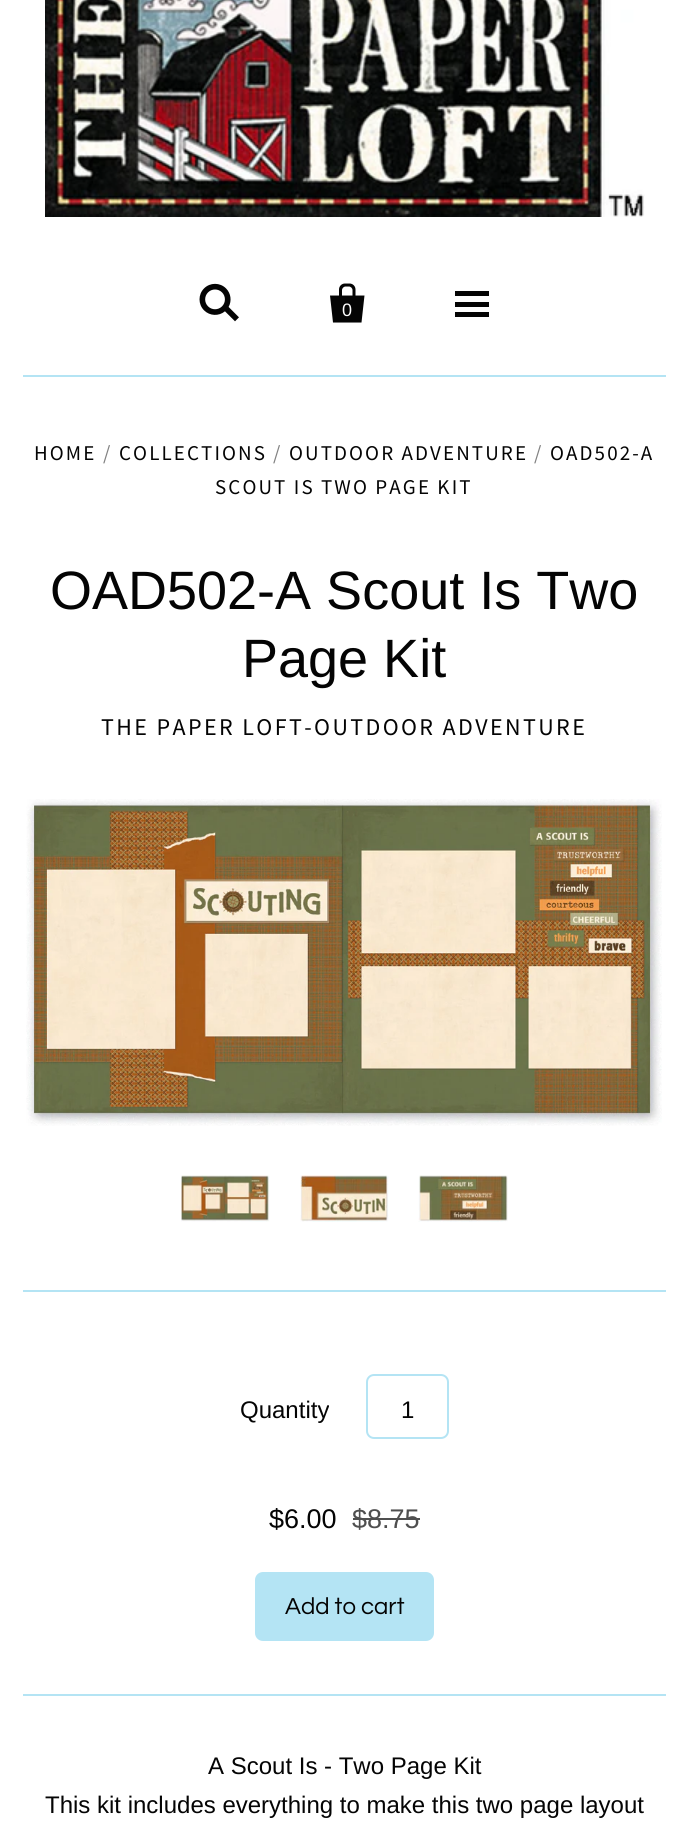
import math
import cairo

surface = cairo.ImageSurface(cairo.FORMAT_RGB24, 688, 1831)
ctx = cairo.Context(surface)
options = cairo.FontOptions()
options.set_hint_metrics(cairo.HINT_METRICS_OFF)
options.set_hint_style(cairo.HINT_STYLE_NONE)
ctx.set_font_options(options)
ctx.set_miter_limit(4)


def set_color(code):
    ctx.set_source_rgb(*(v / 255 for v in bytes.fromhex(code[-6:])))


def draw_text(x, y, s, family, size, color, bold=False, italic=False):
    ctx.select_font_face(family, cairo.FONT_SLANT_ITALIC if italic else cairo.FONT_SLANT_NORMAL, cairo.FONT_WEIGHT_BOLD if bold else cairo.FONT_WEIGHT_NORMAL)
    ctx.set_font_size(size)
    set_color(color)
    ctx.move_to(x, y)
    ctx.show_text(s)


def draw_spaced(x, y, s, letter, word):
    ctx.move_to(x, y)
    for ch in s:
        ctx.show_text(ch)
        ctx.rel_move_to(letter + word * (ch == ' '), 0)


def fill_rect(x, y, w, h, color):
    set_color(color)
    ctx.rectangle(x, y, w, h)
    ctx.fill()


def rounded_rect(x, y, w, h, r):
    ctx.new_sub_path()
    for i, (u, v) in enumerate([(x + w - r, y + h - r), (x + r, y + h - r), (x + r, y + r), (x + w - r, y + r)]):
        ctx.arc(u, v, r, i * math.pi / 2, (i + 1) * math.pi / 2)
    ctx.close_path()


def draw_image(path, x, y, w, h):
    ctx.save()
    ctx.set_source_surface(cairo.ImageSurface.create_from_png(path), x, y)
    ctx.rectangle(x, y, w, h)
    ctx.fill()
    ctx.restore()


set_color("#ffffff")
ctx.paint()
fill_rect(23, 375, 643, 2, "#b4e4f4")
draw_image("assets/img1.png", 45, 0, 600, 217)
draw_image("assets/img2.png", 199, 283, 40, 39)
draw_image("assets/img3.png", 330, 283, 35, 40)
draw_text(342, 316, "0", "Liberation Sans", 18, "#ffffff")
fill_rect(455, 302, 34, 5, "#040404")
fill_rect(455, 291, 34, 5, "#040404")
fill_rect(455, 312, 34, 5, "#040404")
ctx.select_font_face("Source Sans Pro")
ctx.set_font_size(21)
draw_spaced(34, 460, "HOME", 2.1, 0)
set_color("#828282")
draw_spaced(103, 460, "/", 2.1, 0)
set_color("#040404")
draw_spaced(119, 460, "COLLECTIONS", 2.1, 0)
set_color("#828282")
draw_spaced(273, 460, "/", 2.1, 0)
set_color("#040404")
draw_spaced(289, 460, "OUTDOOR ADVENTURE", 2.1, 0)
set_color("#828282")
draw_spaced(534, 460, "/", 2.1, 0)
set_color("#040404")
draw_spaced(550, 460, "OAD502-A", 2.1, 0)
draw_spaced(215, 494, "SCOUT IS TWO PAGE KIT", 2.1, 0)
draw_text(50, 609, "OAD502-A Scout Is Two", "Liberation Sans", 54, "#040404")
draw_text(242, 677, "Page Kit", "Liberation Sans", 54, "#040404")
ctx.select_font_face("Source Sans Pro")
ctx.set_font_size(24)
draw_spaced(101, 735, "THE PAPER LOFT-OUTDOOR ADVENTURE", 2.4, 0)
draw_image("assets/img4.png", 26, 799, 636, 327)
draw_image("assets/img5.png", 181, 1175, 89, 47)
draw_image("assets/img6.png", 300, 1175, 89, 47)
draw_image("assets/img7.png", 418, 1175, 90, 47)
fill_rect(23, 1290, 643, 2, "#b4e4f4")
draw_text(240, 1418, "Quantity", "Liberation Sans", 24, "#040404")
rounded_rect(367, 1375, 81, 63, 7)
set_color("#b4e4f4")
ctx.stroke()
draw_text(401, 1418, "1", "Liberation Sans", 24, "#040404")
draw_text(269, 1528, "$6.00", "Liberation Sans", 27, "#040404")
draw_text(352, 1528, "$8.75", "Liberation Sans", 27, "#4f4f4f")
fill_rect(353, 1518, 67, 2, "#4f4f4f")
set_color("#b4e4f4")
rounded_rect(255, 1572, 179, 69, 8)
ctx.fill()
draw_text(285, 1614, "Add to cart", "Questrial", 24, "#040404")
fill_rect(23, 1694, 643, 2, "#b4e4f4")
draw_text(208, 1774, "A Scout Is - Two Page Kit", "Liberation Sans", 24, "#040404")
draw_text(45, 1813, "This kit includes everything to make this two page layout", "Liberation Sans", 24, "#040404")
surface.write_to_png("output.png")
